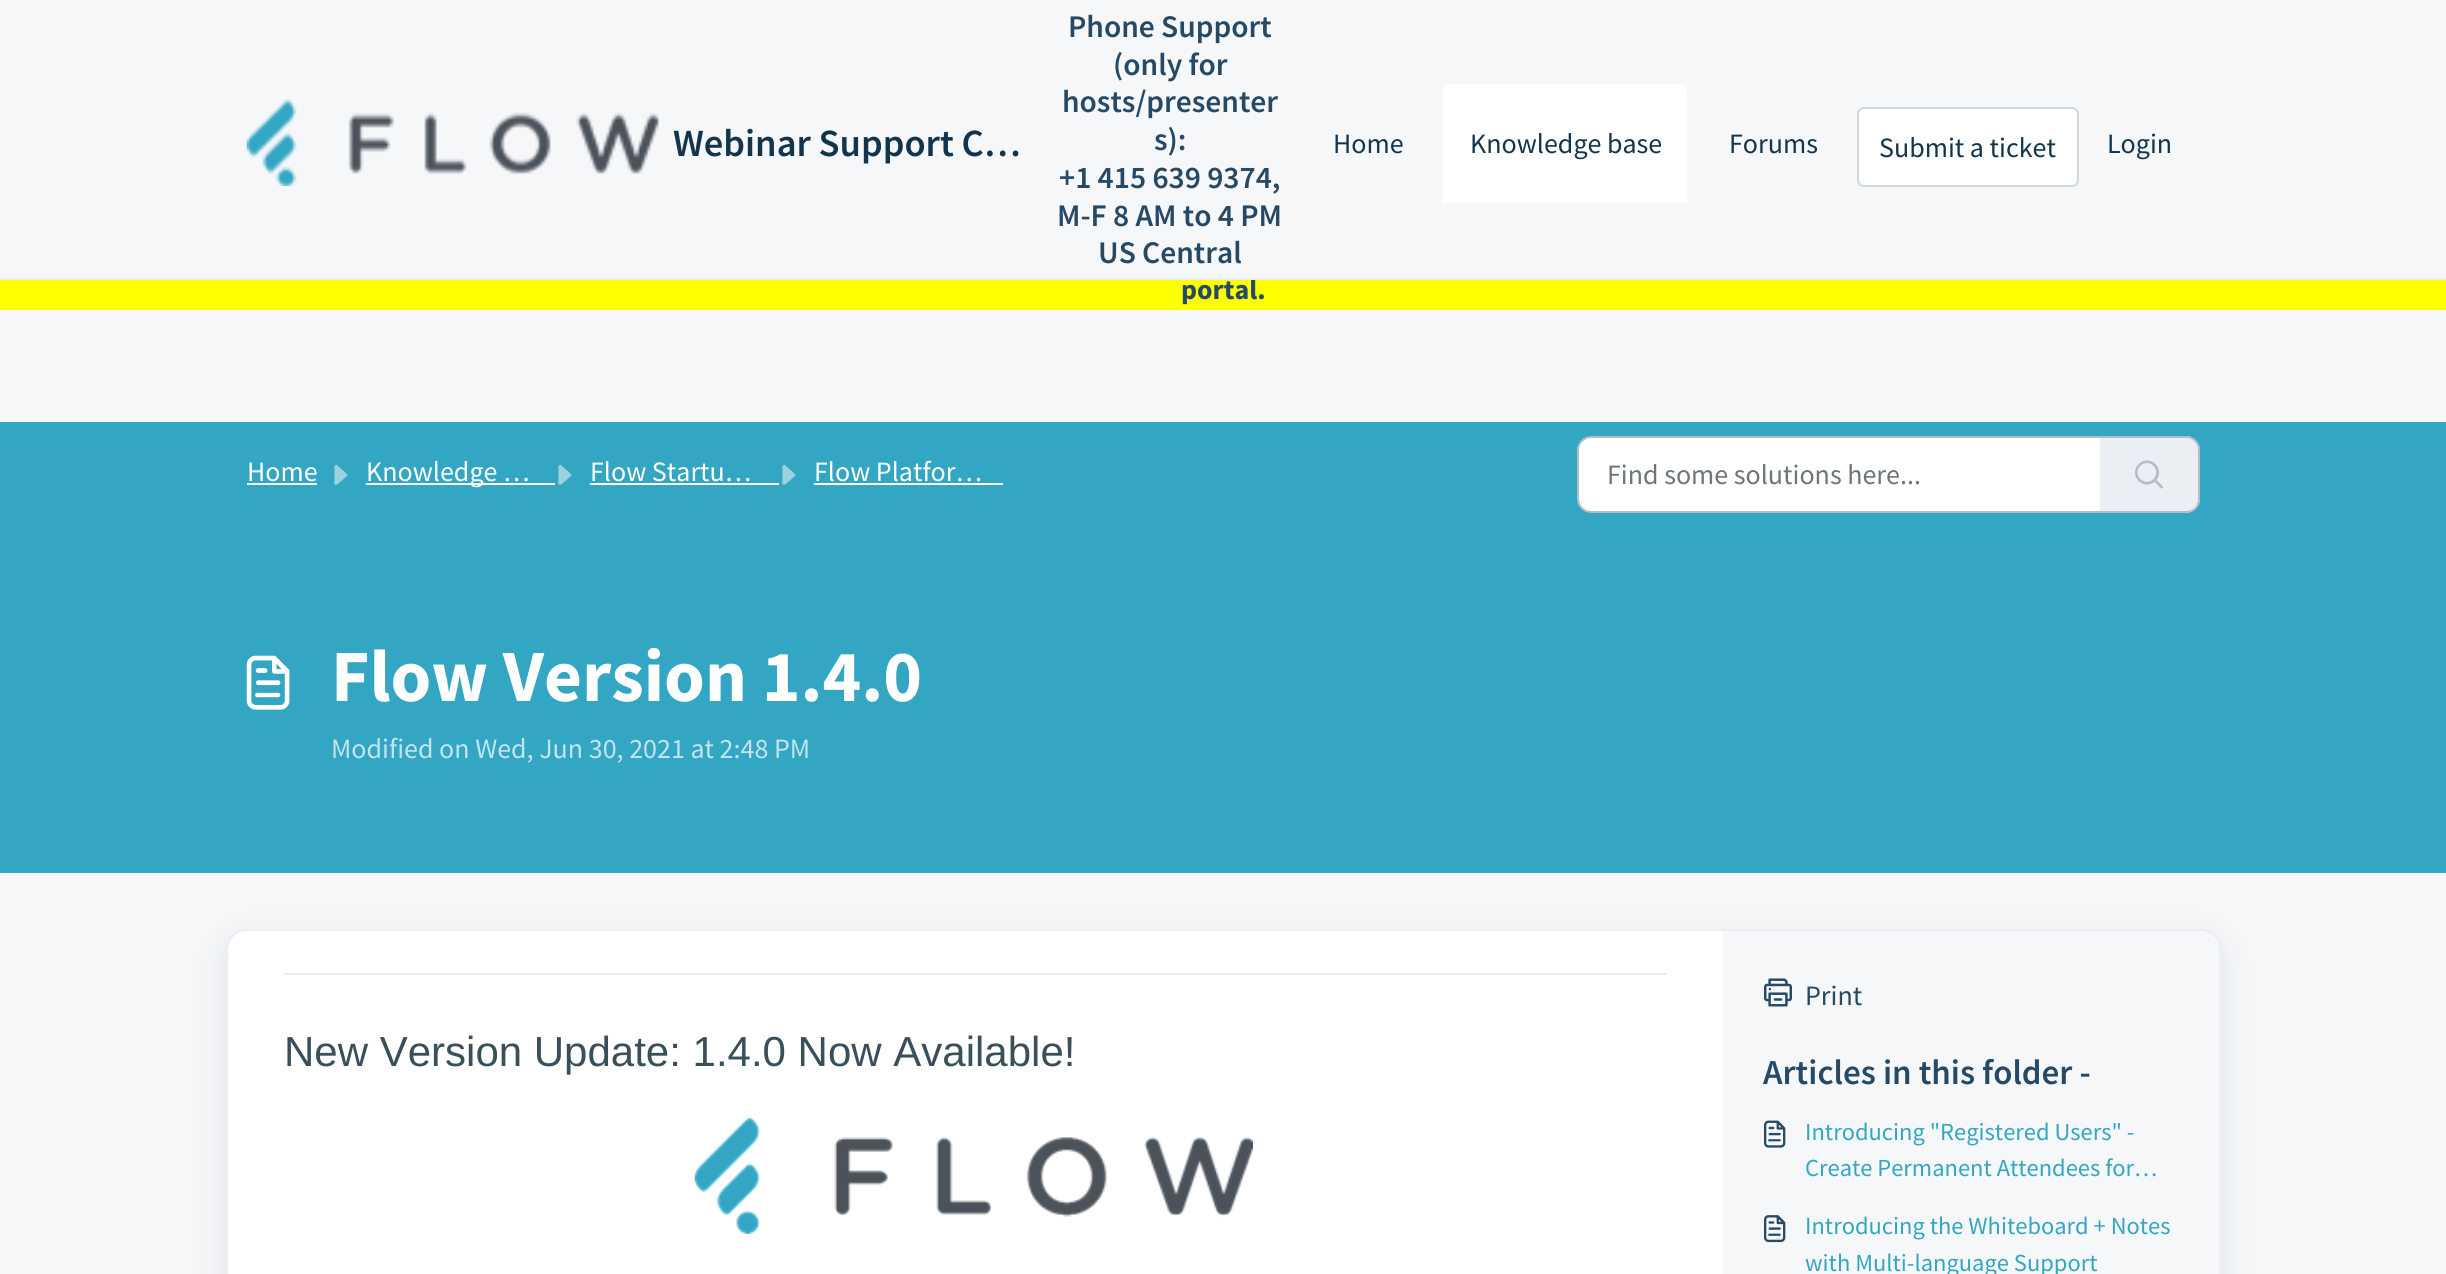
import math
import cairo

surface = cairo.ImageSurface(cairo.FORMAT_RGB24, 2446, 1274)
ctx = cairo.Context(surface)
options = cairo.FontOptions()
options.set_hint_metrics(cairo.HINT_METRICS_OFF)
options.set_hint_style(cairo.HINT_STYLE_NONE)
ctx.set_font_options(options)
ctx.set_miter_limit(4)


def set_color(code):
    ctx.set_source_rgb(*(v / 255 for v in bytes.fromhex(code[-6:])))


def draw_text(x, y, s, family, size, color, bold=False, italic=False):
    ctx.select_font_face(family, cairo.FONT_SLANT_ITALIC if italic else cairo.FONT_SLANT_NORMAL, cairo.FONT_WEIGHT_BOLD if bold else cairo.FONT_WEIGHT_NORMAL)
    ctx.set_font_size(size)
    set_color(color)
    ctx.move_to(x, y)
    ctx.show_text(s)


def fill_rect(x, y, w, h, color):
    set_color(color)
    ctx.rectangle(x, y, w, h)
    ctx.fill()


def rounded_rect(x, y, w, h, r):
    ctx.new_sub_path()
    for i, (u, v) in enumerate([(x + w - r, y + h - r), (x + r, y + h - r), (x + r, y + r), (x + w - r, y + r)]):
        ctx.arc(u, v, r, i * math.pi / 2, (i + 1) * math.pi / 2)
    ctx.close_path()


def draw_shadow(x, y, w, h, r, blur, alpha):
    ctx.push_group_with_content(cairo.CONTENT_ALPHA)
    ctx.set_operator(cairo.OPERATOR_SOURCE)
    for i in range(15, -16, -2):
        e = blur * i / 6
        if min(w, h) + 2 * e > 0:
            ctx.set_source_rgba(0, 0, 0, alpha * math.erfc((i - 1) / 8.5) / 2)
            rounded_rect(x - e, y - e, w + 2 * e, h + 2 * e, max(0, min(r + e + blur * .6, min(w, h) / 2 + e)))
            ctx.fill()
    ctx.mask(ctx.pop_group())


def draw_image(path, x, y, w, h):
    ctx.save()
    ctx.set_source_surface(cairo.ImageSurface.create_from_png(path), x, y)
    ctx.rectangle(x, y, w, h)
    ctx.fill()
    ctx.restore()


set_color("#f5f7f9")
ctx.paint()
fill_rect(0, 280, 2446, 30, "#ffff00")
draw_text(1181, 299, "portal.", "Source Sans Pro", 28, "#264966", bold=True)
fill_rect(0, 278, 2446, 2, "#ebeff3")
draw_image("assets/img1.png", 246, 99, 413, 87)
draw_text(673, 156, "Webinar Support C…", "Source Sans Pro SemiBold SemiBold", 38.5, "#12344d")
draw_text(1068, 37, "Phone Support", "Source Sans Pro SemiBold SemiBold", 31.5, "#264966")
draw_text(1113, 75, "(only for", "Source Sans Pro SemiBold SemiBold", 31.5, "#264966")
draw_text(1062, 112, "hosts/presenter", "Source Sans Pro SemiBold SemiBold", 31.5, "#264966")
draw_text(1154, 150, "s):", "Source Sans Pro SemiBold SemiBold", 31.5, "#264966")
draw_text(1059, 188, "+1 415 639 9374,", "Source Sans Pro SemiBold SemiBold", 31.5, "#264966")
draw_text(1057, 226, "M-F 8 AM to 4 PM", "Source Sans Pro SemiBold SemiBold", 31.5, "#264966")
draw_text(1098, 263, "US Central", "Source Sans Pro SemiBold SemiBold", 31.5, "#264966")
draw_text(1333, 153, "Home", "Source Sans Pro", 28, "#12344d")
set_color("#ffffff")
ctx.new_path()
ctx.move_to(1449, 84)
ctx.line_to(1680, 84)
ctx.curve_to(1684, 84, 1687, 87, 1687, 91)
ctx.line_to(1687, 203)
ctx.line_to(1442, 203)
ctx.line_to(1442, 91)
ctx.curve_to(1442, 87, 1445, 84, 1449, 84)
ctx.close_path()
ctx.fill()
draw_text(1470, 153, "Knowledge base", "Source Sans Pro", 28, "#12344d")
draw_text(1729, 153, "Forums", "Source Sans Pro", 28, "#12344d")
set_color("#ffffff")
rounded_rect(1858, 108, 220, 78, 6)
ctx.fill_preserve()
set_color("#cfd7df")
ctx.stroke()
draw_text(1879, 157, "Submit a ticket", "Source Sans Pro", 28, "#12344d")
draw_text(2107, 153, "Login", "Source Sans Pro", 28, "#12344d")
fill_rect(0, 422, 2446, 451, "#33a6c3")
draw_text(247, 481, "Home", "Source Sans Pro", 28, "#ffffff")
fill_rect(247, 483, 70, 2, "#ffffff")
draw_image("assets/img2.png", 334, 465, 14, 20)
fill_rect(366, 483, 189, 2, "#ffffff")
draw_text(366, 481, "Knowledge …", "Source Sans Pro", 28, "#ffffff")
draw_image("assets/img2.png", 558, 465, 14, 20)
draw_text(590, 481, "Flow Startu…", "Source Sans Pro", 28, "#ffffff")
fill_rect(590, 483, 189, 2, "#ffffff")
draw_image("assets/img2.png", 782, 465, 14, 20)
draw_text(814, 481, "Flow Platfor…", "Source Sans Pro", 28, "#ffffff")
fill_rect(814, 483, 189, 2, "#ffffff")
ctx.new_path()
ctx.move_to(1591, 437)
ctx.line_to(2101, 437)
ctx.line_to(2101, 512)
ctx.line_to(1591, 512)
ctx.curve_to(1584, 512, 1578, 506, 1578, 499)
ctx.line_to(1578, 450)
ctx.curve_to(1578, 443, 1584, 437, 1591, 437)
ctx.close_path()
ctx.fill_preserve()
set_color("#b1bdc8")
ctx.stroke()
draw_text(1607, 484, "Find some solutions here...", "Source Sans Pro", 28, "#6c757d")
set_color("#ebeff3")
ctx.new_path()
ctx.move_to(2100, 436)
ctx.line_to(2186, 436)
ctx.curve_to(2193.5, 436, 2200, 442.5, 2200, 450)
ctx.line_to(2200, 499)
ctx.curve_to(2200, 506.5, 2193.5, 513, 2186, 513)
ctx.line_to(2100, 513)
ctx.close_path()
ctx.fill()
set_color("#b1bdc8")
ctx.set_fill_rule(cairo.FILL_RULE_EVEN_ODD)
ctx.new_path()
ctx.move_to(2100, 436)
ctx.line_to(2186, 436)
ctx.curve_to(2193, 436, 2200, 442, 2200, 450)
ctx.line_to(2200, 499)
ctx.curve_to(2200, 506, 2193, 513, 2186, 513)
ctx.line_to(2100, 513)
ctx.close_path()
ctx.move_to(2100, 438)
ctx.line_to(2186, 438)
ctx.curve_to(2193, 438, 2198, 443, 2198, 450)
ctx.line_to(2198, 499)
ctx.curve_to(2198, 506, 2193, 511, 2186, 511)
ctx.line_to(2100, 511)
ctx.close_path()
ctx.fill()
draw_image("assets/img3.png", 2135, 460, 28, 29)
draw_image("assets/img4.png", 246, 655, 44, 55)
draw_text(331, 701, "Flow Version 1.4.0", "Source Sans Pro", 73.5, "#ffffff", bold=True)
draw_text(331, 758, "Modified on Wed, Jun 30, 2021 at 2:48 PM", "Source Sans Pro", 28, "#c2e4ed")
set_color("#27313a")
draw_shadow(226, 940, 1995, 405, 21, 16.5, 0.1)
set_color("#ffffff")
rounded_rect(227, 930, 1993, 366, 20)
ctx.fill_preserve()
set_color("#ebeff3")
ctx.stroke()
fill_rect(284, 973, 1382, 2, "#e1eef4")
draw_text(284, 1066, "New Version Update: 1.4.0 Now Available!", "Liberation Sans", 42, "#394f5a")
draw_image("assets/img5.png", 694, 1118, 559, 116)
set_color("#f5f7f9")
ctx.new_path()
ctx.move_to(1722, 931)
ctx.line_to(2198, 931)
ctx.curve_to(2209.5, 931, 2219, 940.5, 2219, 952)
ctx.line_to(2219, 1274)
ctx.curve_to(2219, 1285.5, 2209.5, 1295, 2198, 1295)
ctx.line_to(1722, 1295)
ctx.close_path()
ctx.fill()
draw_image("assets/img6.png", 1764, 978, 28, 29)
draw_text(1805, 1005, "Print", "Source Sans Pro", 28, "#264966")
draw_text(1763, 1084, "Articles in this folder -", "Source Sans Pro SemiBold SemiBold", 35, "#264966")
draw_image("assets/img7.png", 1764, 1120, 22, 28)
draw_text(1805, 1140, "Introducing \"Registered Users\" -", "Source Sans Pro", 24.5, "#33a6c3")
draw_text(1805, 1176, "Create Permanent Attendees for…", "Source Sans Pro", 24.5, "#33a6c3")
draw_image("assets/img8.png", 1764, 1215, 22, 28)
draw_text(1805, 1234, "Introducing the Whiteboard + Notes", "Source Sans Pro", 24.5, "#33a6c3")
draw_text(1805, 1271, "with Multi-language Support", "Source Sans Pro", 24.5, "#33a6c3")
surface.write_to_png("output.png")
